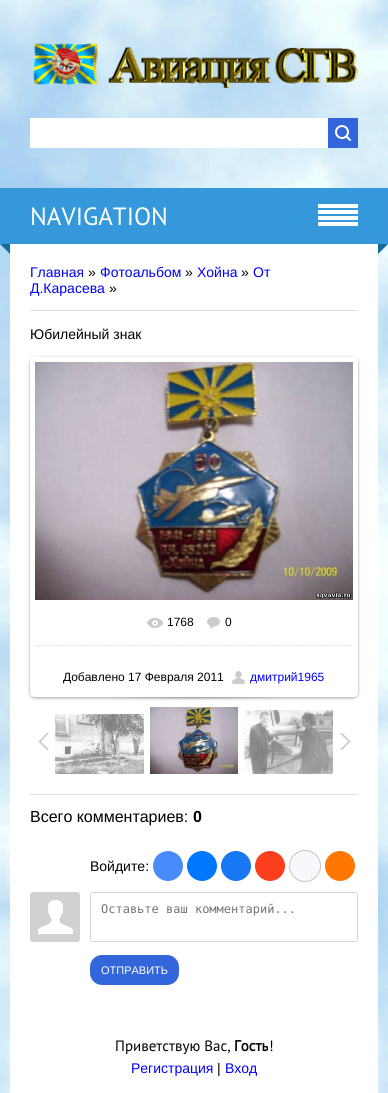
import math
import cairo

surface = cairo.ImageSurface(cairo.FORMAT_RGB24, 388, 1093)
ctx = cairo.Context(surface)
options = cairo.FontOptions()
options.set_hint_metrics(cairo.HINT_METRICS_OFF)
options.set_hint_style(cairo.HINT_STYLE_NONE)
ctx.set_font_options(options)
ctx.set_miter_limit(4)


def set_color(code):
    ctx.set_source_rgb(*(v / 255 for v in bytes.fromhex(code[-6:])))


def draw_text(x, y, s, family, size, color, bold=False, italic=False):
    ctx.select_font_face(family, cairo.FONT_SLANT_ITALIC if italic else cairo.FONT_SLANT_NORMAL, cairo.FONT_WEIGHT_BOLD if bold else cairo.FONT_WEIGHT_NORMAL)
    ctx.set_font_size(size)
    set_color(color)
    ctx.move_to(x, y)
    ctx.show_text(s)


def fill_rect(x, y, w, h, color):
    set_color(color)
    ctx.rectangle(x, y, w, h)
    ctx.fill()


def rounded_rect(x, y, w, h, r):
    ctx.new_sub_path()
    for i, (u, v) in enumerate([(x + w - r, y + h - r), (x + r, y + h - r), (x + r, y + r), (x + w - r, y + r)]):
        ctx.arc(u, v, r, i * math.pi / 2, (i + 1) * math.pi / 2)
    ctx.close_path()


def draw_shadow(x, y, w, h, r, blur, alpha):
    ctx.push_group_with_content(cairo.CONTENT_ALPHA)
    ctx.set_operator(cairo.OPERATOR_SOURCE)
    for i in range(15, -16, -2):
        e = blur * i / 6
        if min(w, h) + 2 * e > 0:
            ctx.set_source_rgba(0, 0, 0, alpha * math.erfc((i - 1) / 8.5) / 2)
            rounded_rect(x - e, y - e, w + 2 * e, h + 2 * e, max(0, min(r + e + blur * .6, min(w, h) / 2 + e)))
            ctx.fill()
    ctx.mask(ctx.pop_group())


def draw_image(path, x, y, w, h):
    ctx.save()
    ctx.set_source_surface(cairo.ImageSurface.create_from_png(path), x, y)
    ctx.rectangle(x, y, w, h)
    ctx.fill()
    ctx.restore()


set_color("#ffffff")
ctx.paint()
draw_image("assets/img1.png", 0, 0, 388, 1093)
draw_image("assets/img2.png", 33, 43, 325, 45)
fill_rect(30, 118, 298, 30, "#ffffff")
fill_rect(328, 118, 30, 30, "#3466db")
draw_image("assets/img3.png", 335, 125, 16, 16)
fill_rect(0, 188, 388, 56, "#3498db")
draw_text(30, 225, "NAVIGATION", "PT Sans", 25, "#ffffff")
fill_rect(318, 204, 40, 4, "#ffffff")
fill_rect(318, 210, 40, 4, "#ffffff")
fill_rect(318, 216, 40, 4, "#ffffff")
fill_rect(318, 222, 40, 4, "#ffffff")
set_color("#0f6d9e")
ctx.new_path()
ctx.move_to(0, 244)
ctx.line_to(10, 244)
ctx.line_to(10, 254)
ctx.close_path()
ctx.fill()
ctx.new_path()
ctx.move_to(378, 244)
ctx.line_to(388, 244)
ctx.line_to(378, 254)
ctx.close_path()
ctx.fill()
fill_rect(10, 244, 368, 849, "#ffffff")
draw_text(30, 277, "Главная", "Liberation Sans", 14, "#0000ff")
draw_text(88, 277, "»", "Liberation Sans", 14, "#000000")
draw_text(100, 277, "Фотоальбом", "Liberation Sans", 14, "#0000ff")
draw_text(185, 277, "»", "Liberation Sans", 14, "#000000")
draw_text(197, 277, "Хойна", "Liberation Sans", 14, "#0000ff")
draw_text(241, 277, "»", "Liberation Sans", 14, "#000000")
draw_text(253, 277, "От", "Liberation Sans", 14, "#0000ff")
draw_text(30, 293, "Д.Карасева", "Liberation Sans", 14, "#0000ff")
draw_text(109, 293, "»", "Liberation Sans", 14, "#000000")
fill_rect(30, 310, 328, 1, "#dbe1e8")
draw_text(30, 339, "Юбилейный знак", "Liberation Sans", 14, "#000000")
ctx.save()
ctx.set_fill_rule(cairo.FILL_RULE_EVEN_ODD)
ctx.new_path()
ctx.move_to(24, 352)
ctx.line_to(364, 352)
ctx.line_to(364, 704)
ctx.line_to(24, 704)
ctx.close_path()
ctx.move_to(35, 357)
ctx.line_to(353, 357)
ctx.curve_to(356, 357, 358, 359, 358, 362)
ctx.line_to(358, 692)
ctx.curve_to(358, 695, 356, 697, 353, 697)
ctx.line_to(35, 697)
ctx.curve_to(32, 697, 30, 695, 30, 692)
ctx.line_to(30, 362)
ctx.curve_to(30, 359, 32, 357, 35, 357)
ctx.close_path()
ctx.clip()
set_color("#000000")
draw_shadow(30, 358, 328, 340, 5, 1.5, 0.37)
ctx.restore()
draw_image("assets/img4.png", 35, 362, 318, 238)
draw_image("assets/img5.png", 147, 618, 16, 10)
draw_text(167, 626, "1768", "Liberation Sans", 12, "#000000")
draw_image("assets/img6.png", 207, 617, 13, 12)
draw_text(225, 626, "0", "Liberation Sans", 12, "#000000")
draw_image("assets/img7.png", 35, 645, 317, 1)
draw_text(63, 681, "Добавлено 17 Февраля 2011", "Liberation Sans", 12, "#000000")
draw_image("assets/img8.png", 232, 671, 13, 13)
draw_text(250, 681, "дмитрий1965", "Liberation Sans", 12, "#0000ff")
draw_image("assets/img9.png", 114, 697, 161, 3)
draw_image("assets/img10.png", 38, 733, 11, 17)
draw_image("assets/img11.png", 55, 714, 89, 60)
draw_image("assets/img12.png", 150, 707, 88, 67)
draw_image("assets/img13.png", 244, 710, 89, 64)
draw_image("assets/img14.png", 340, 733, 11, 17)
fill_rect(30, 794, 328, 1, "#dbe1e8")
draw_text(30, 822, "Всего комментариев:", "Liberation Sans", 16, "#000000")
draw_text(193, 822, "0", "Liberation Sans", 16, "#000000", bold=True)
draw_text(90, 871, "Войдите:", "Liberation Sans", 14, "#000000")
set_color("#498bfa")
ctx.new_path()
ctx.arc(168, 866, 15, 0, 2 * math.pi)
ctx.fill()
set_color("#0077ff")
ctx.arc(202, 866, 15, 0, 2 * math.pi)
ctx.fill()
set_color("#1877f2")
ctx.arc(236, 866, 15, 0, 2 * math.pi)
ctx.fill()
set_color("#fc3f1d")
ctx.arc(270, 866, 15, 0, 2 * math.pi)
ctx.fill()
set_color("#f8f8fc")
ctx.arc(305, 866, 15.5, 0, 2 * math.pi)
ctx.fill_preserve()
set_color("#c4c4c4")
ctx.set_line_width(1)
ctx.stroke()
set_color("#ff7700")
ctx.arc(340, 866, 15, 0, 2 * math.pi)
ctx.fill()
draw_image("assets/img15.png", 30, 892, 50, 50)
rounded_rect(90.5, 892.5, 267, 49, 2.5)
set_color("#d6d6d6")
ctx.stroke()
draw_text(101, 913, "Оставьте ваш комментарий...", "DejaVu Sans Mono", 12, "#757575")
set_color("#3466db")
rounded_rect(90, 955, 89, 30, 12)
ctx.fill()
draw_text(101, 974, "ОТПРАВИТЬ", "Liberation Sans", 11, "#ffffff")
draw_text(115, 1051, "Приветствую Вас,", "PT Sans", 15, "#000000")
draw_text(234, 1051, "Гость", "PT Sans", 15, "#000000", bold=True)
draw_text(269, 1051, "!", "PT Sans", 15, "#000000")
draw_text(131, 1073, "Регистрация", "Liberation Sans", 14, "#0000ff")
draw_text(217, 1073, "|", "Liberation Sans", 14, "#000000")
draw_text(225, 1073, "Вход", "Liberation Sans", 14, "#0000ff")
surface.write_to_png("output.png")
